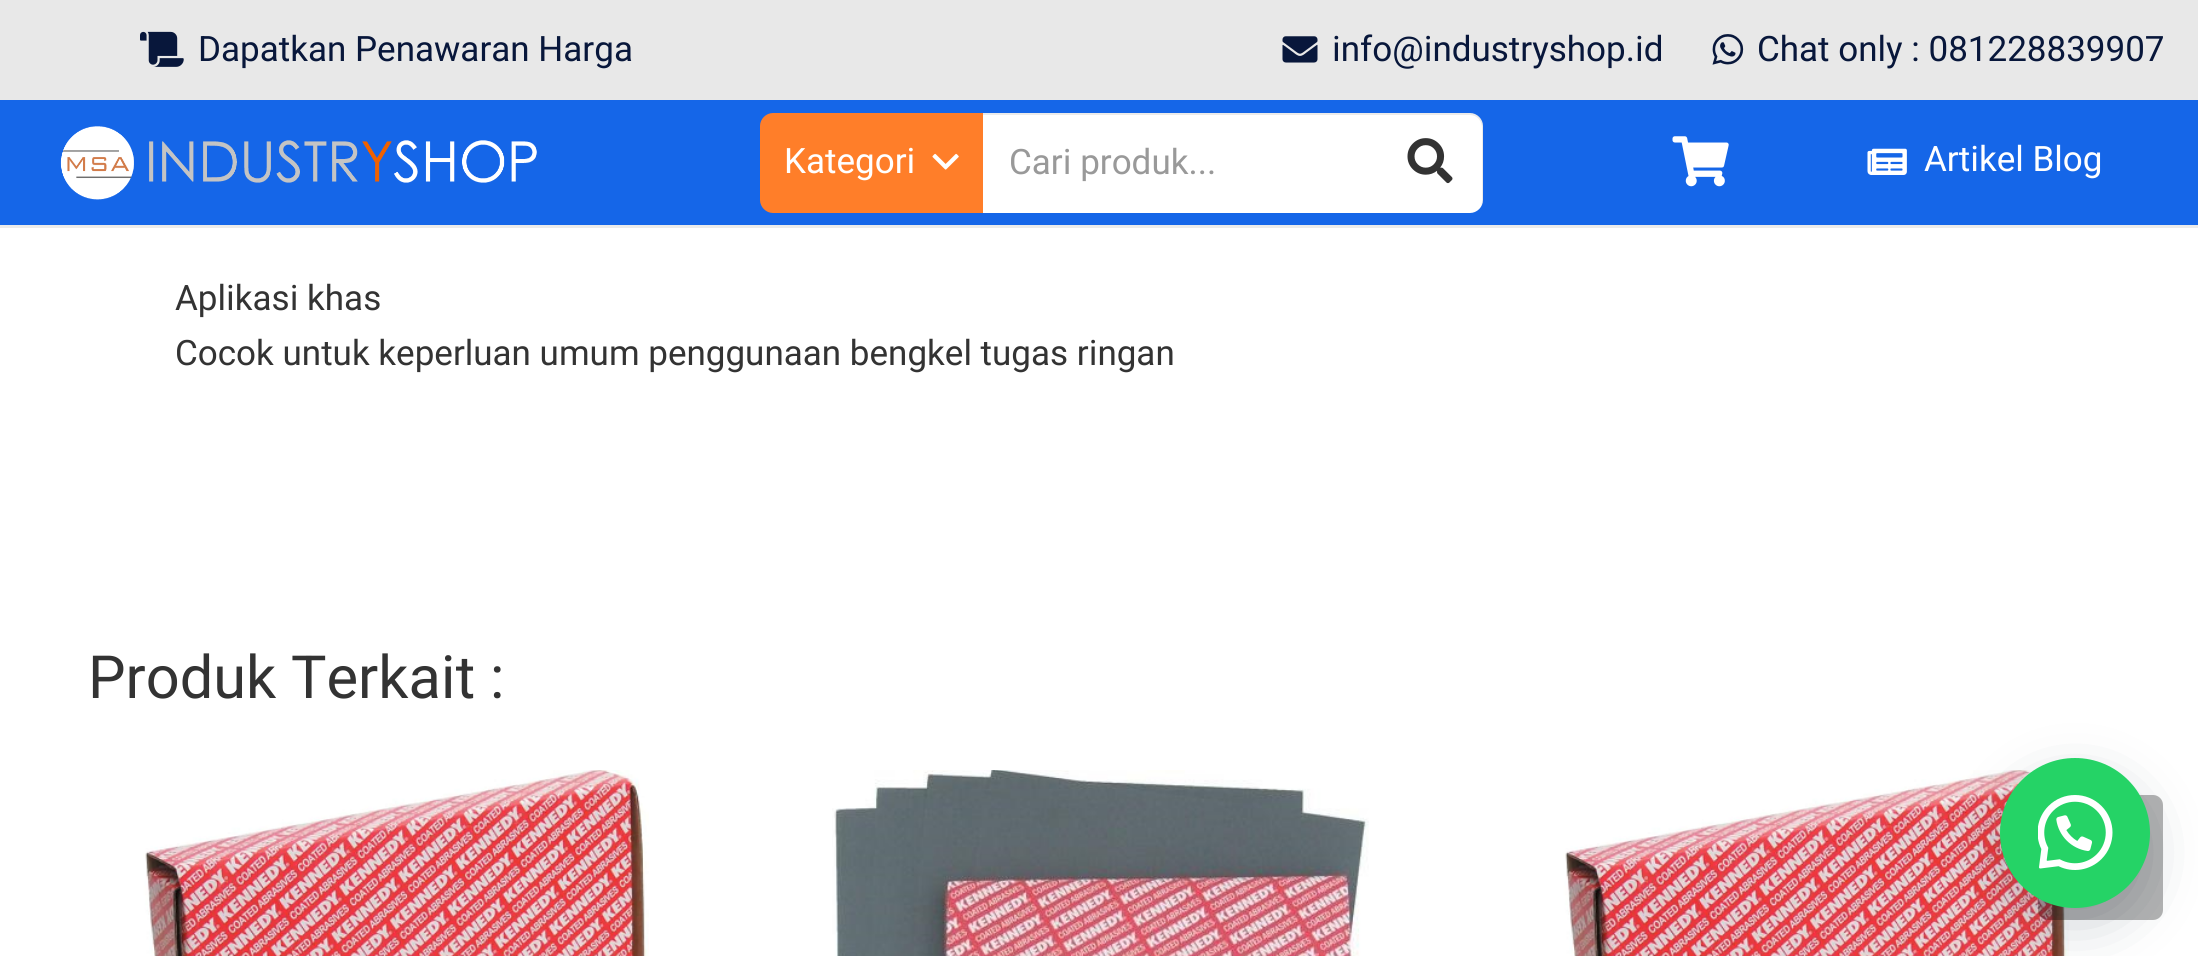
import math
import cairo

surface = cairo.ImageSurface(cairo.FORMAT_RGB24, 2198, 956)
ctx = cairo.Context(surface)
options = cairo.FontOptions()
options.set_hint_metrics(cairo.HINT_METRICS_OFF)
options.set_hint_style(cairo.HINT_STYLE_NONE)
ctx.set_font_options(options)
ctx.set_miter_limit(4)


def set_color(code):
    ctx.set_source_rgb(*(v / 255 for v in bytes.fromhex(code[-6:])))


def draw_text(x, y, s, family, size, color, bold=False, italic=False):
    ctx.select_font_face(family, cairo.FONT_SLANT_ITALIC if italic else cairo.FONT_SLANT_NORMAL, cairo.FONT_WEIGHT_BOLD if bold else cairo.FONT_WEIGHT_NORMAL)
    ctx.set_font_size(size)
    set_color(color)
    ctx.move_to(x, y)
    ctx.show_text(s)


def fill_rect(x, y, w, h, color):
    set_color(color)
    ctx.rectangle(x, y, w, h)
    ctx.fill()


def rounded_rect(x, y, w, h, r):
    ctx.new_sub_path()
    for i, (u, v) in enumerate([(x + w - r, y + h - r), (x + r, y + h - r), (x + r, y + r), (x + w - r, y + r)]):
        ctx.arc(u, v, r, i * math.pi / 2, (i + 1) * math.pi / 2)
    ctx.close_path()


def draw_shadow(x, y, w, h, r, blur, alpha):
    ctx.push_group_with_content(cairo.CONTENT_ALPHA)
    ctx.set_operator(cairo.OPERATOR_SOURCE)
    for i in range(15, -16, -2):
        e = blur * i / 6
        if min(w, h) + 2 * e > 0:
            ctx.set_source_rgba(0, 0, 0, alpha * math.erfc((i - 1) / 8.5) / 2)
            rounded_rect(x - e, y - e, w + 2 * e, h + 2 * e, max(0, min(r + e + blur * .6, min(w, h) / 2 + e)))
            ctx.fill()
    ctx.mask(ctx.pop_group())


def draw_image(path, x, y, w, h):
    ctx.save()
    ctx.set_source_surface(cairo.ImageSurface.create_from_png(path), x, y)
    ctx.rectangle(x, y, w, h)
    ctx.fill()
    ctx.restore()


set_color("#ffffff")
ctx.paint()
fill_rect(0, 0, 2198, 100, "#e8e8e8")
draw_image("assets/img1.png", 140, 31, 44, 36)
draw_text(198, 61, "Dapatkan Penawaran Harga", "Heebo", 35, "#08173b")
draw_image("assets/img2.png", 1282, 36, 36, 27)
draw_text(1332, 61, "info@industryshop.id", "Heebo", 35, "#08173b")
draw_image("assets/img3.png", 1712, 34, 32, 31)
draw_text(1757, 61, "Chat only : 081228839907", "Heebo", 35, "#08173b")
fill_rect(0, 225, 2198, 3, "#ebebeb")
fill_rect(0, 100, 2198, 125, "#1566e8")
draw_image("assets/img4.png", 60, 126, 477, 74)
set_color("#ff7e29")
ctx.new_path()
ctx.move_to(773, 113)
ctx.line_to(983, 113)
ctx.line_to(983, 213)
ctx.line_to(773, 213)
ctx.curve_to(766, 213, 760, 207, 760, 200)
ctx.line_to(760, 126)
ctx.curve_to(760, 119, 766, 113, 773, 113)
ctx.close_path()
ctx.fill()
draw_text(784, 173, "Kategori", "Heebo", 35, "#ffffff")
draw_image("assets/img5.png", 932, 153, 27, 17)
ctx.new_path()
ctx.move_to(983, 113)
ctx.line_to(1470, 113)
ctx.curve_to(1477, 113, 1483, 119, 1483, 126)
ctx.line_to(1483, 200)
ctx.curve_to(1483, 207, 1477, 213, 1470, 213)
ctx.line_to(983, 213)
ctx.close_path()
ctx.fill()
ctx.set_source_rgba(0, 0, 0, 0.08)
ctx.new_path()
ctx.move_to(983, 113)
ctx.line_to(983, 115)
ctx.line_to(1470, 115)
ctx.curve_to(1477, 115, 1482, 121, 1482, 128)
ctx.line_to(1482, 202)
ctx.line_to(1481, 206)
ctx.curve_to(1482, 205, 1483, 202, 1483, 200)
ctx.line_to(1483, 126)
ctx.curve_to(1483, 119, 1477, 113, 1470, 113)
ctx.close_path()
ctx.fill()
draw_text(1009, 174, "Cari produk...", "Heebo", 35, "#999999")
draw_image("assets/img6.png", 1407, 138, 46, 46)
draw_image("assets/img7.png", 1672, 136, 57, 51)
draw_image("assets/img8.png", 1867, 148, 40, 27)
draw_text(1924, 171, "Artikel Blog", "Heebo", 35, "#ffffff")
draw_text(175, 310, "Aplikasi khas", "Heebo", 35, "#333333")
draw_text(175, 365, "Cocok untuk keperluan umum penggunaan bengkel tugas ringan", "Heebo", 35, "#333333")
draw_text(88, 698, "Produk Terkait :", "Heebo", 59.5, "#333333")
draw_image("assets/img9.png", 143, 770, 506, 186)
draw_image("assets/img10.png", 832, 770, 537, 186)
draw_image("assets/img11.png", 1563, 770, 506, 186)
ctx.set_source_rgba(0, 0, 0, 0.3)
rounded_rect(2038, 795, 125, 125, 10)
ctx.fill()
set_color("#2d3e4f")
draw_shadow(2013, 790, 125, 125, 62.5, 31, 0.3)
set_color("#25d366")
ctx.arc(2075, 833, 75, 0, 2 * math.pi)
ctx.fill()
draw_image("assets/img12.png", 2038, 795, 75, 75)
surface.write_to_png("output.png")
